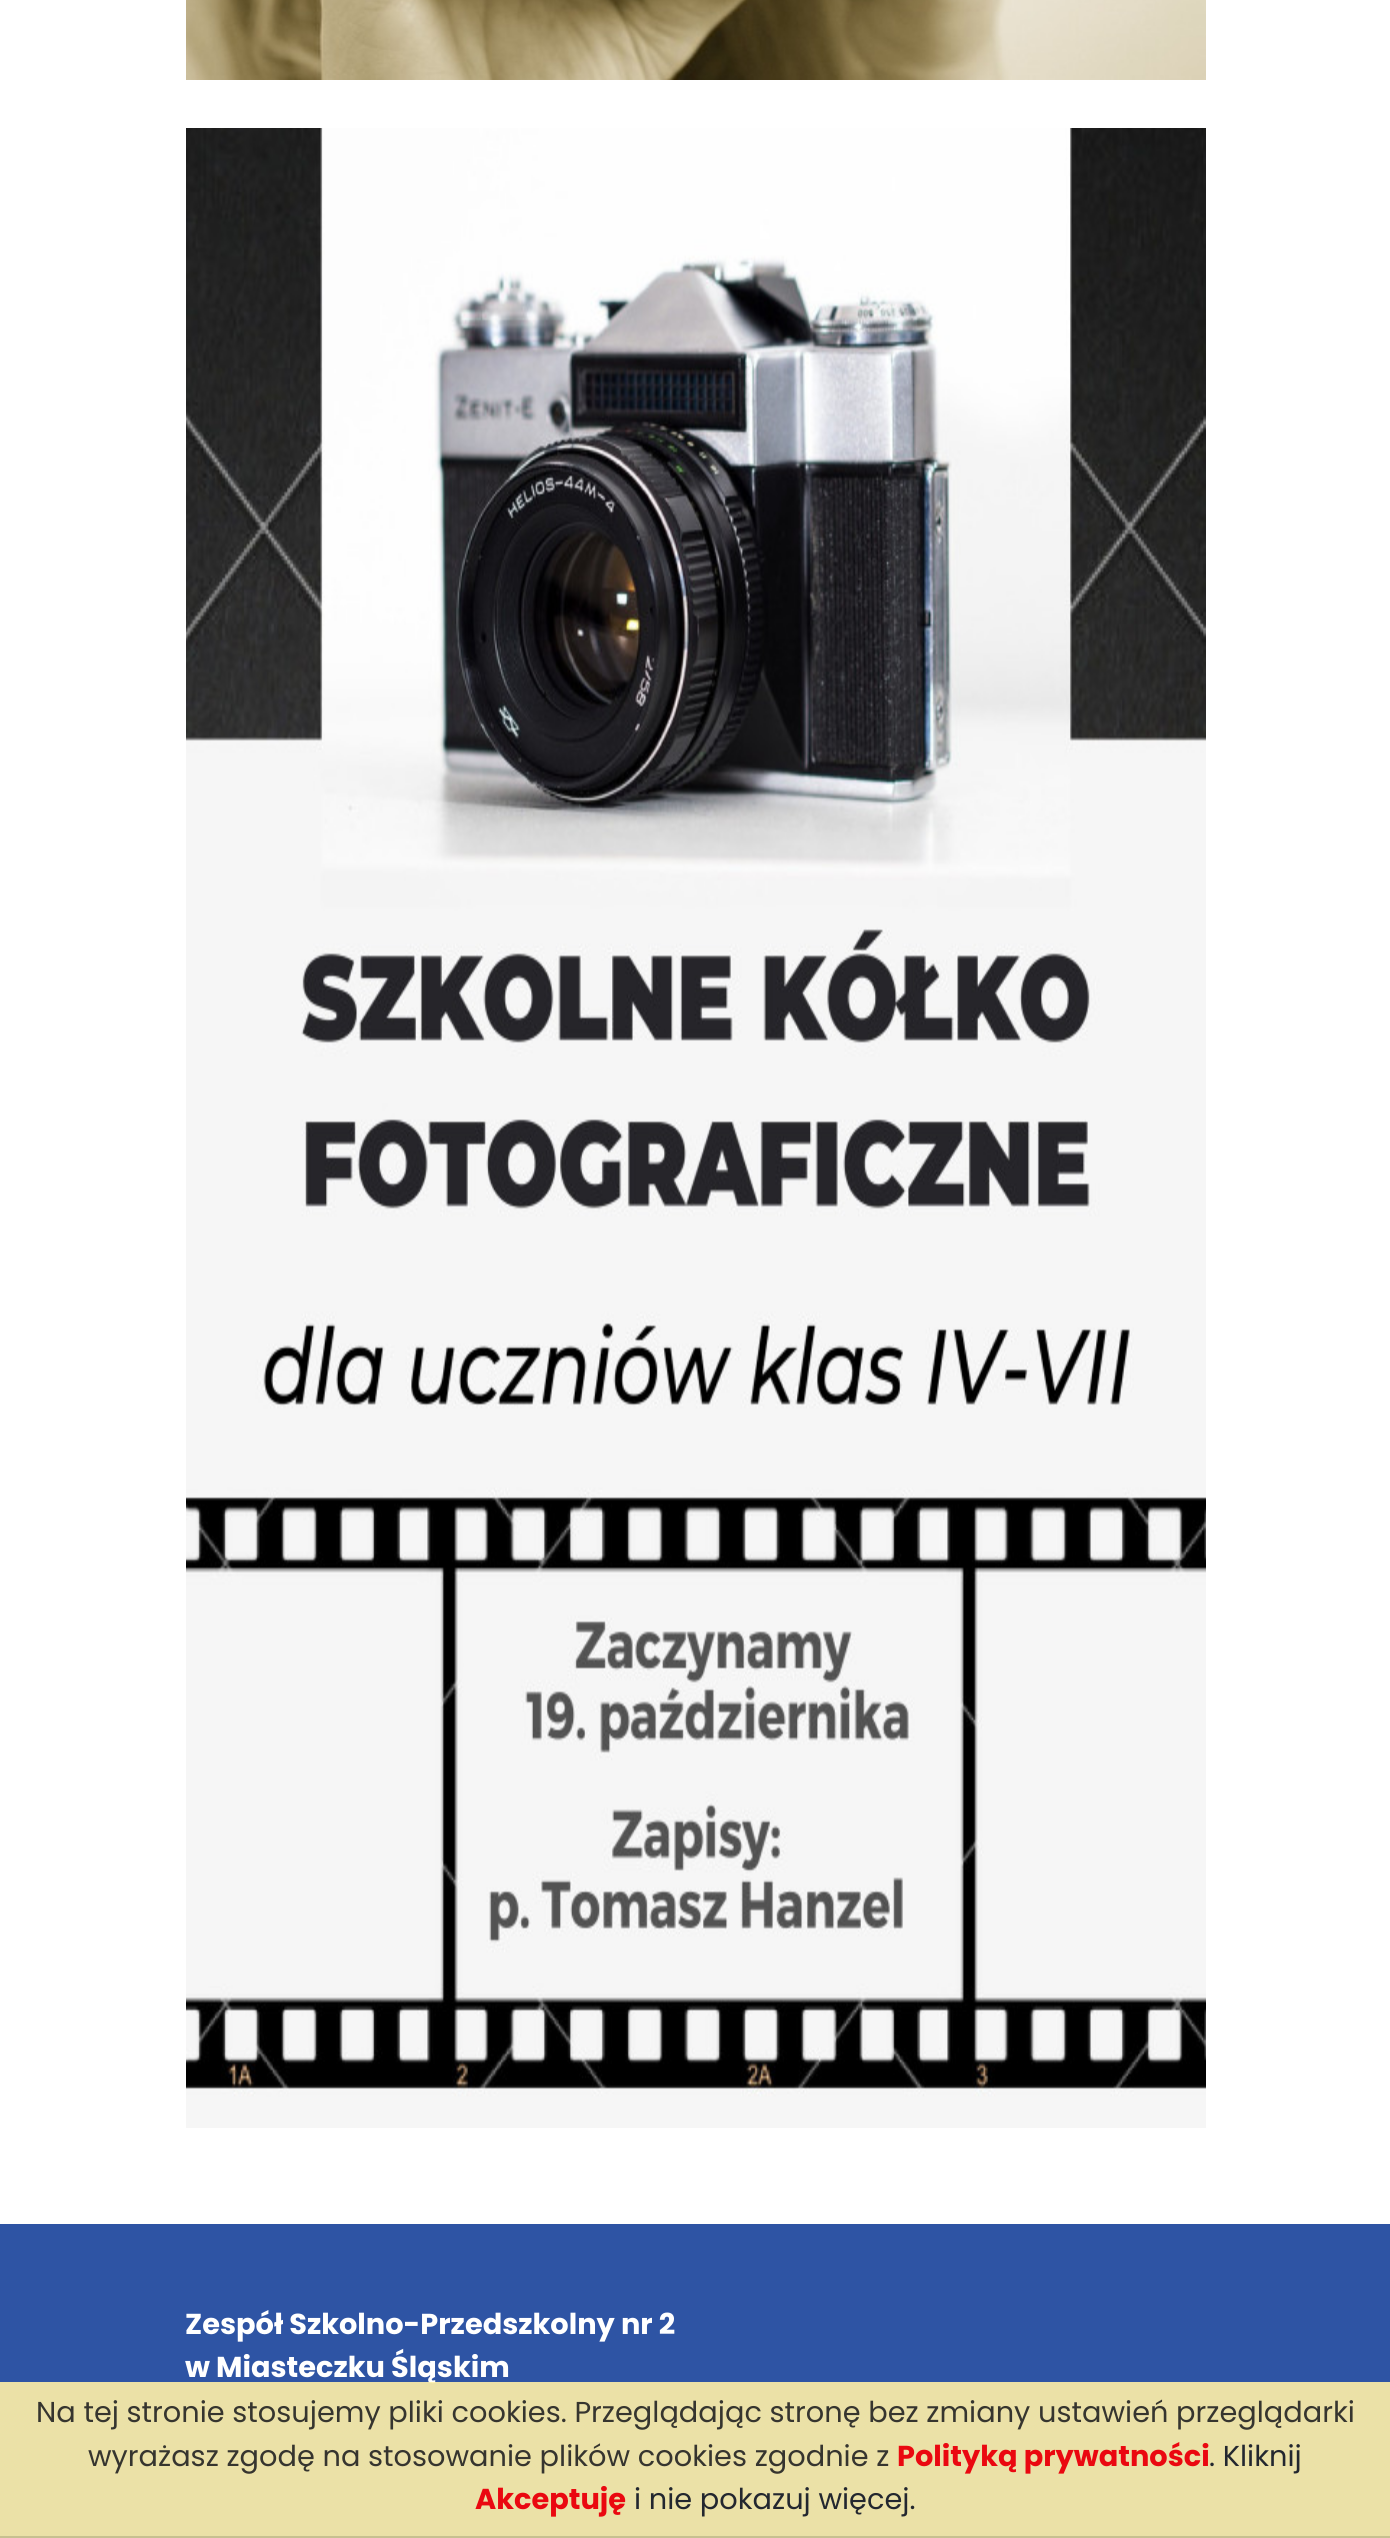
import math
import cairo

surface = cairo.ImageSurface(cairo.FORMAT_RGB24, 1390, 2538)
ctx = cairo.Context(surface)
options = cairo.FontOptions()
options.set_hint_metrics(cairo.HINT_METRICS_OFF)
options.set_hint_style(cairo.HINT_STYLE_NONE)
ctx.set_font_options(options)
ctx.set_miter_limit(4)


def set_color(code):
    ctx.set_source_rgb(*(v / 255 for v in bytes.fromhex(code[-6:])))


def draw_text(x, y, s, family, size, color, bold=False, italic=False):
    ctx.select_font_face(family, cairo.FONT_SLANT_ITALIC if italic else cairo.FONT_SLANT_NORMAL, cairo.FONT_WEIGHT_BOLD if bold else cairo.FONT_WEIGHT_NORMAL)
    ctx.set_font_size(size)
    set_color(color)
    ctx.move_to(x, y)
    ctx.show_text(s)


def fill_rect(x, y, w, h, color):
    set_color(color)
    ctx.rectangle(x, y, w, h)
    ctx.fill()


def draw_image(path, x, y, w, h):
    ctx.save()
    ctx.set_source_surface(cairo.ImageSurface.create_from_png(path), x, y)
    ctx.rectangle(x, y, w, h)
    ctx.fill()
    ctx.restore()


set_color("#ffffff")
ctx.paint()
draw_image("assets/img1.png", 186, 0, 1020, 80)
draw_image("assets/img2.png", 186, 128, 1020, 2000)
fill_rect(0, 2224, 1390, 312, "#2e54a4")
draw_text(185, 2334, "Zespół Szkolno-Przedszkolny nr 2", "Poppins", 28.8, "#ffffff", bold=True)
draw_text(185, 2377, "w Miasteczku Śląskim", "Poppins", 28.8, "#ffffff", bold=True)
ctx.set_source_rgba(1, 0.945, 0.659, 0.9)
ctx.rectangle(0, 2382, 1390, 154)
ctx.fill()
fill_rect(0, 2536, 1390, 2, "#c7c090")
draw_text(36, 2422, "Na tej stronie stosujemy pliki cookies. Przeglądając stronę bez zmiany ustawień przeglądarki", "Poppins", 28.8, "#36352f")
draw_text(88, 2466, "wyrażasz zgodę na stosowanie plików cookies zgodnie z", "Poppins", 28.8, "#36352f")
draw_text(897, 2466, "Polityką prywatności", "Poppins", 28.8, "#ea0810", bold=True)
draw_text(1209, 2466, ". Kliknij", "Poppins", 28.8, "#23272f")
draw_text(475, 2509, "Akceptuję", "Poppins", 28.8, "#ea0810", bold=True)
draw_text(634, 2509, "i nie pokazuj więcej.", "Poppins", 28.8, "#23272f")
surface.write_to_png("output.png")
